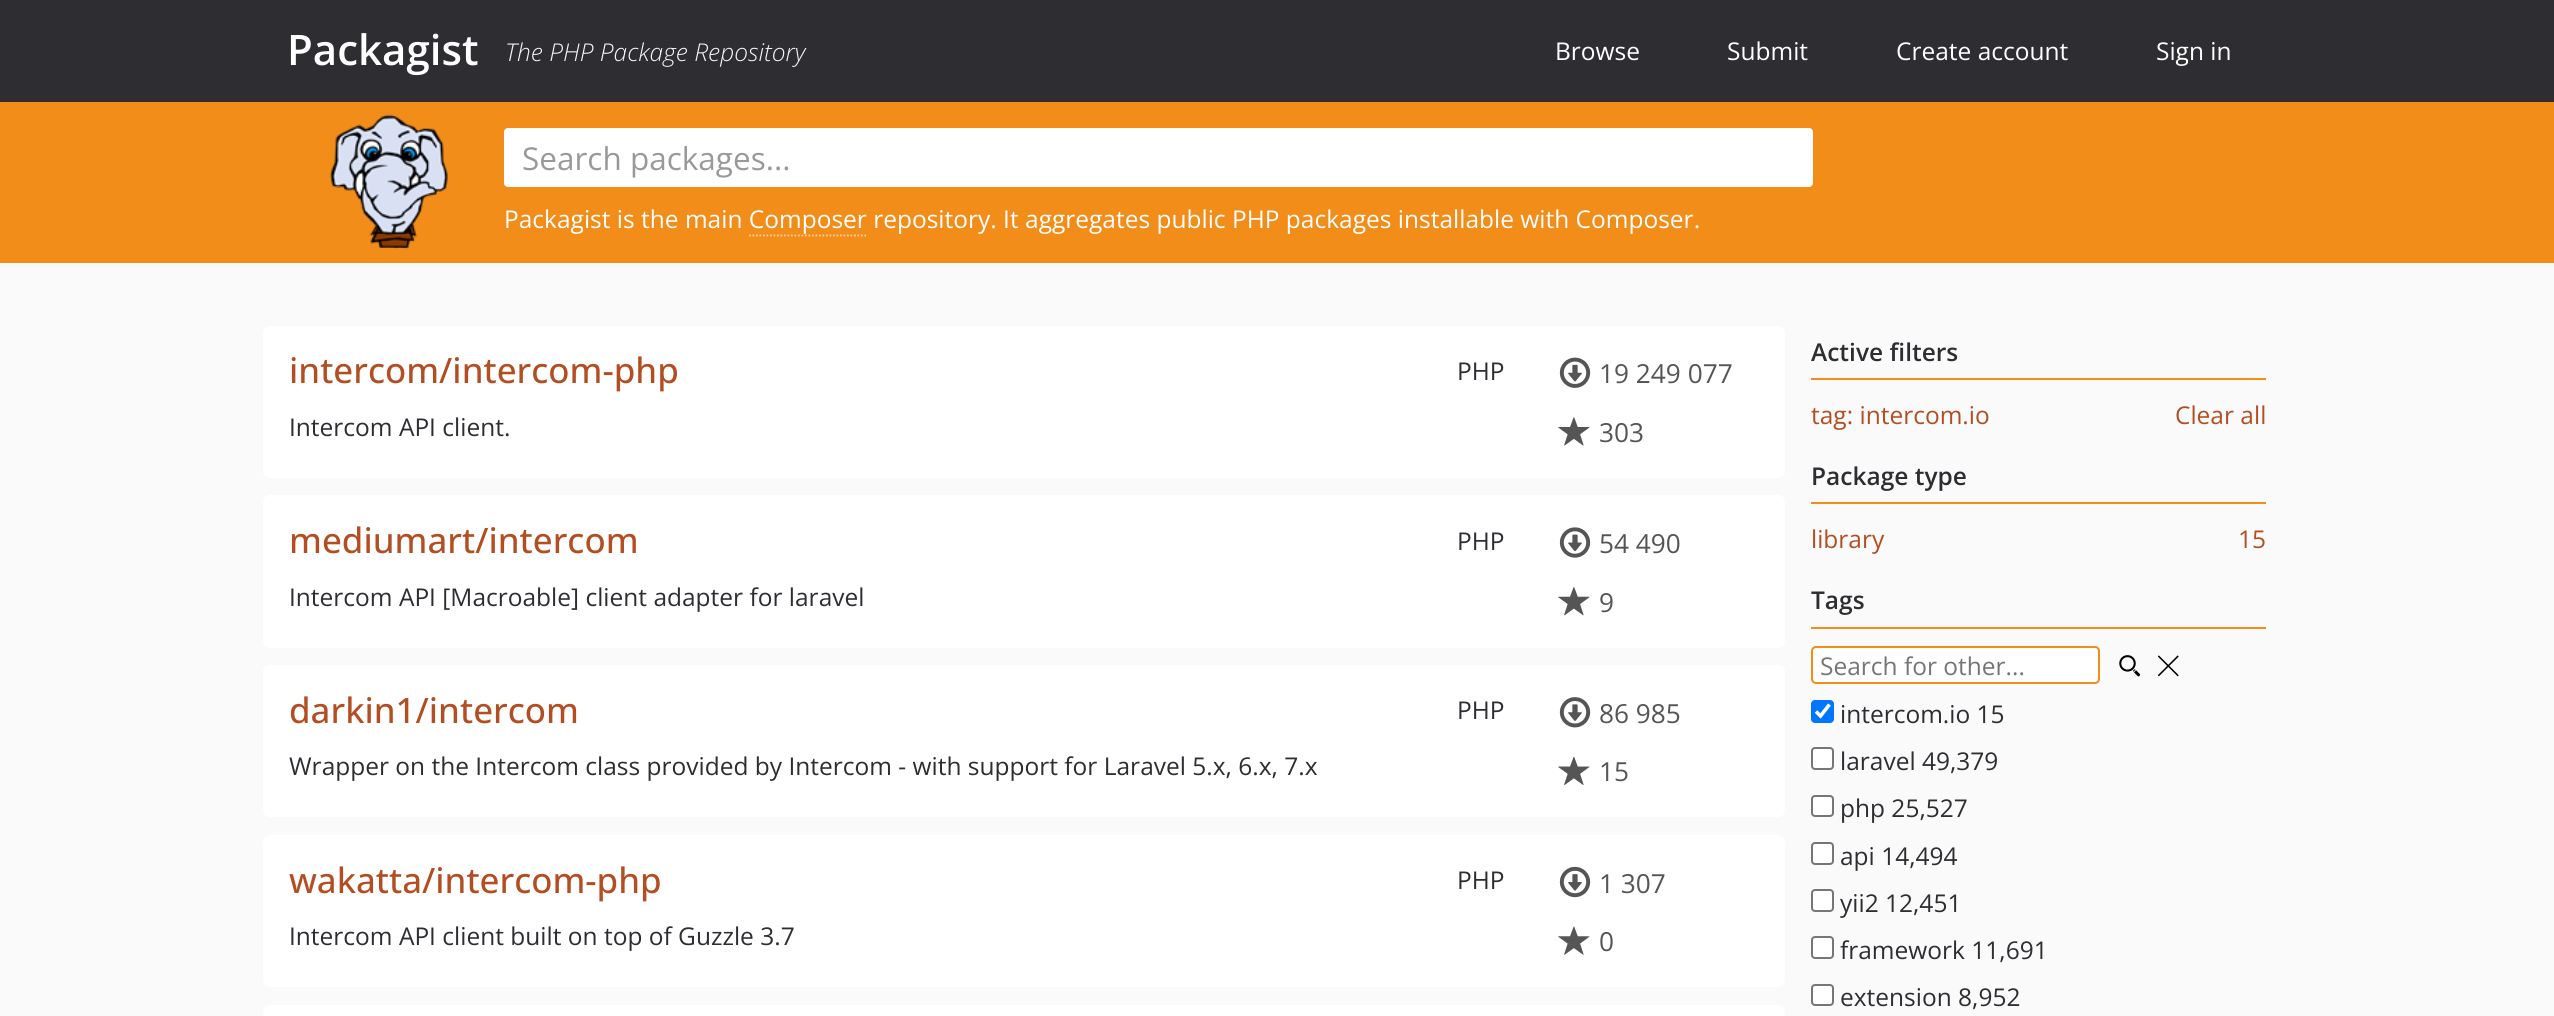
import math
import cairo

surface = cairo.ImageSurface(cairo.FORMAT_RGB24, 2554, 1016)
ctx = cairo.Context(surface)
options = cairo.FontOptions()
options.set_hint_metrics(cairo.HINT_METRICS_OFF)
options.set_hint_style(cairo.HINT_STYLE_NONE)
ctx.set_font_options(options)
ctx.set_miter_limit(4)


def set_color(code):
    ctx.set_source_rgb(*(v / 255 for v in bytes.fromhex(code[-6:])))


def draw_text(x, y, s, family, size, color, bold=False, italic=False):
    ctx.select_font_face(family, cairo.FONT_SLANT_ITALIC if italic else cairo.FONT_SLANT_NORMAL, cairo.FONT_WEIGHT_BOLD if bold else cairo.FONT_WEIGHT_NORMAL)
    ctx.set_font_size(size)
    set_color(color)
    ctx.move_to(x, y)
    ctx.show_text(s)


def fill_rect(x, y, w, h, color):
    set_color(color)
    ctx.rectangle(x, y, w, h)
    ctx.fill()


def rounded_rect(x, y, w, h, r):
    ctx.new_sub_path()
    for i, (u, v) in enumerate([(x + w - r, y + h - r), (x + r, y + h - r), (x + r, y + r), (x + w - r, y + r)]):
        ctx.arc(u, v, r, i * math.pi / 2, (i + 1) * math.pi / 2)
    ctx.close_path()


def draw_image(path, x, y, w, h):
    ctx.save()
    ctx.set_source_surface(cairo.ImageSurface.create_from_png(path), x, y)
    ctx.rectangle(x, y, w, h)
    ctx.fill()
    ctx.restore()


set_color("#fafafa")
ctx.paint()
fill_rect(0, 0, 2554, 102, "#2d2d32")
draw_text(287, 65, "Packagist", "Open Sans SemiBold", 42, "#ffffff")
draw_text(505, 61, "The PHP Package Repository", "Open Sans Light", 24.5, "#f3f4f5", italic=True)
draw_text(1555, 60, "Browse", "Open Sans", 24.5, "#ffffff")
draw_text(1727, 60, "Submit", "Open Sans", 24.5, "#ffffff")
draw_text(1896, 60, "Create account", "Open Sans", 24.5, "#ffffff")
draw_text(2156, 60, "Sign in", "Open Sans", 24.5, "#ffffff")
fill_rect(0, 102, 2554, 161, "#f28d1a")
set_color("#ffffff")
rounded_rect(504, 128, 1309, 59, 4)
ctx.fill()
draw_text(522, 170, "Search packages...", "Open Sans", 31.5, "#999999")
draw_image("assets/img1.png", 329, 114, 119, 136)
draw_text(504, 228, "Packagist is the main Composer repository. It aggregates public PHP packages installable with Composer.", "Open Sans", 24.5, "#ffffff")
ctx.new_path()
ctx.move_to(749, 235.5)
ctx.line_to(866, 235.5)
set_color("#fad1a3")
ctx.set_line_width(1.8)
ctx.set_dash([1.75, 1.75])
ctx.stroke()
set_color("#ffffff")
rounded_rect(263, 326, 1522, 152, 7)
ctx.fill()
draw_text(289, 383, "intercom/intercom-php", "Open Sans Medium", 35, "#b34e22")
draw_text(1457, 380, "PHP", "Open Sans", 24.5, "#2d2d32")
draw_text(289, 436, "Intercom API client.", "Open Sans", 24.5, "#2d2d32")
draw_image("assets/img2.png", 1559, 357, 32, 31)
draw_text(1599, 383, "19 249 077", "Open Sans", 26.25, "#555555")
draw_image("assets/img3.png", 1558, 417, 32, 29)
draw_text(1599, 442, "303", "Open Sans", 26.25, "#555555")
set_color("#ffffff")
rounded_rect(263, 495, 1522, 153, 7)
ctx.fill()
draw_text(289, 553, "mediumart/intercom", "Open Sans Medium", 35, "#b34e22")
draw_text(1457, 550, "PHP", "Open Sans", 24.5, "#2d2d32")
draw_text(289, 606, "Intercom API [Macroable] client adapter for laravel", "Open Sans", 24.5, "#2d2d32")
draw_image("assets/img4.png", 1559, 527, 32, 31)
draw_text(1599, 553, "54 490", "Open Sans", 26.25, "#555555")
draw_image("assets/img5.png", 1558, 587, 32, 29)
draw_text(1599, 612, "9", "Open Sans", 26.25, "#555555")
set_color("#ffffff")
rounded_rect(263, 665, 1522, 152, 7)
ctx.fill()
draw_text(289, 723, "darkin1/intercom", "Open Sans Medium", 35, "#b34e22")
draw_text(1457, 719, "PHP", "Open Sans", 24.5, "#2d2d32")
draw_text(289, 775, "Wrapper on the Intercom class provided by Intercom - with support for Laravel 5.x, 6.x, 7.x", "Open Sans", 24.5, "#2d2d32")
draw_image("assets/img6.png", 1559, 697, 32, 31)
draw_text(1599, 723, "86 985", "Open Sans", 26.25, "#555555")
draw_image("assets/img7.png", 1558, 756, 32, 29)
draw_text(1599, 781, "15", "Open Sans", 26.25, "#555555")
set_color("#ffffff")
rounded_rect(263, 835, 1522, 152, 7)
ctx.fill()
draw_text(289, 893, "wakatta/intercom-php", "Open Sans Medium", 35, "#b34e22")
draw_text(1457, 889, "PHP", "Open Sans", 24.5, "#2d2d32")
draw_text(289, 945, "Intercom API client built on top of Guzzle 3.7", "Open Sans", 24.5, "#2d2d32")
draw_image("assets/img8.png", 1559, 866, 32, 32)
draw_text(1599, 893, "1 307", "Open Sans", 26.25, "#555555")
draw_image("assets/img9.png", 1558, 926, 32, 29)
draw_text(1599, 951, "0", "Open Sans", 26.25, "#555555")
set_color("#ffffff")
rounded_rect(263, 1005, 1522, 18, 7)
ctx.fill()
fill_rect(1811, 378, 455, 2, "#f28d1a")
draw_text(1811, 361, "Active filters", "Open Sans SemiBold", 24.5, "#2d2d32")
draw_text(1811, 424, "tag: intercom.io", "Open Sans", 24.5, "#b34e22")
draw_text(2175, 424, "Clear all", "Open Sans", 24.5, "#b34e22")
fill_rect(1811, 502, 455, 2, "#f28d1a")
draw_text(1811, 485, "Package type", "Open Sans SemiBold", 24.5, "#2d2d32")
draw_text(1811, 548, "library", "Open Sans", 24.5, "#b34e22")
draw_text(2238, 548, "15", "Open Sans", 24.5, "#b34e22")
fill_rect(1811, 627, 455, 2, "#f28d1a")
draw_text(1811, 609, "Tags", "Open Sans SemiBold", 24.5, "#2d2d32")
set_color("#ffffff")
rounded_rect(1812, 647, 287, 36, 4)
ctx.fill_preserve()
set_color("#f28d1a")
ctx.set_line_width(2)
ctx.set_dash([])
ctx.stroke()
draw_text(1820, 675, "Search for other...", "Open Sans", 24.5, "#757575")
draw_image("assets/img10.png", 2119, 655, 21, 22)
draw_image("assets/img11.png", 2158, 655, 21, 22)
set_color("#0075ff")
rounded_rect(1811, 700, 23, 23, 4)
ctx.fill()
ctx.new_path()
ctx.move_to(1816, 711.5)
ctx.line_to(1820.5, 716)
ctx.line_to(1829.5, 704.5)
set_color("#ffffff")
ctx.set_line_width(3.6)
ctx.stroke()
draw_text(1840, 723, "intercom.io 15", "Open Sans", 24.5, "#2d2d32")
set_color("#ffffff")
rounded_rect(1812, 748, 21, 21, 3)
ctx.fill_preserve()
set_color("#767676")
ctx.set_line_width(2)
ctx.stroke()
draw_text(1840, 770, "laravel 49,379", "Open Sans", 24.5, "#2d2d32")
set_color("#ffffff")
rounded_rect(1812, 796, 21, 20, 3)
ctx.fill_preserve()
set_color("#767676")
ctx.stroke()
draw_text(1840, 817, "php 25,527", "Open Sans", 24.5, "#2d2d32")
set_color("#ffffff")
rounded_rect(1812, 843, 21, 21, 3)
ctx.fill_preserve()
set_color("#767676")
ctx.stroke()
draw_text(1840, 865, "api 14,494", "Open Sans", 24.5, "#2d2d32")
set_color("#ffffff")
rounded_rect(1812, 890, 21, 21, 3)
ctx.fill_preserve()
set_color("#767676")
ctx.stroke()
draw_text(1840, 912, "yii2 12,451", "Open Sans", 24.5, "#2d2d32")
set_color("#ffffff")
rounded_rect(1812, 937, 21, 21, 3)
ctx.fill_preserve()
set_color("#767676")
ctx.stroke()
draw_text(1840, 959, "framework 11,691", "Open Sans", 24.5, "#2d2d32")
set_color("#ffffff")
rounded_rect(1812, 985, 21, 20, 3)
ctx.fill_preserve()
set_color("#767676")
ctx.stroke()
draw_text(1840, 1006, "extension 8,952", "Open Sans", 24.5, "#2d2d32")
surface.write_to_png("output.png")
